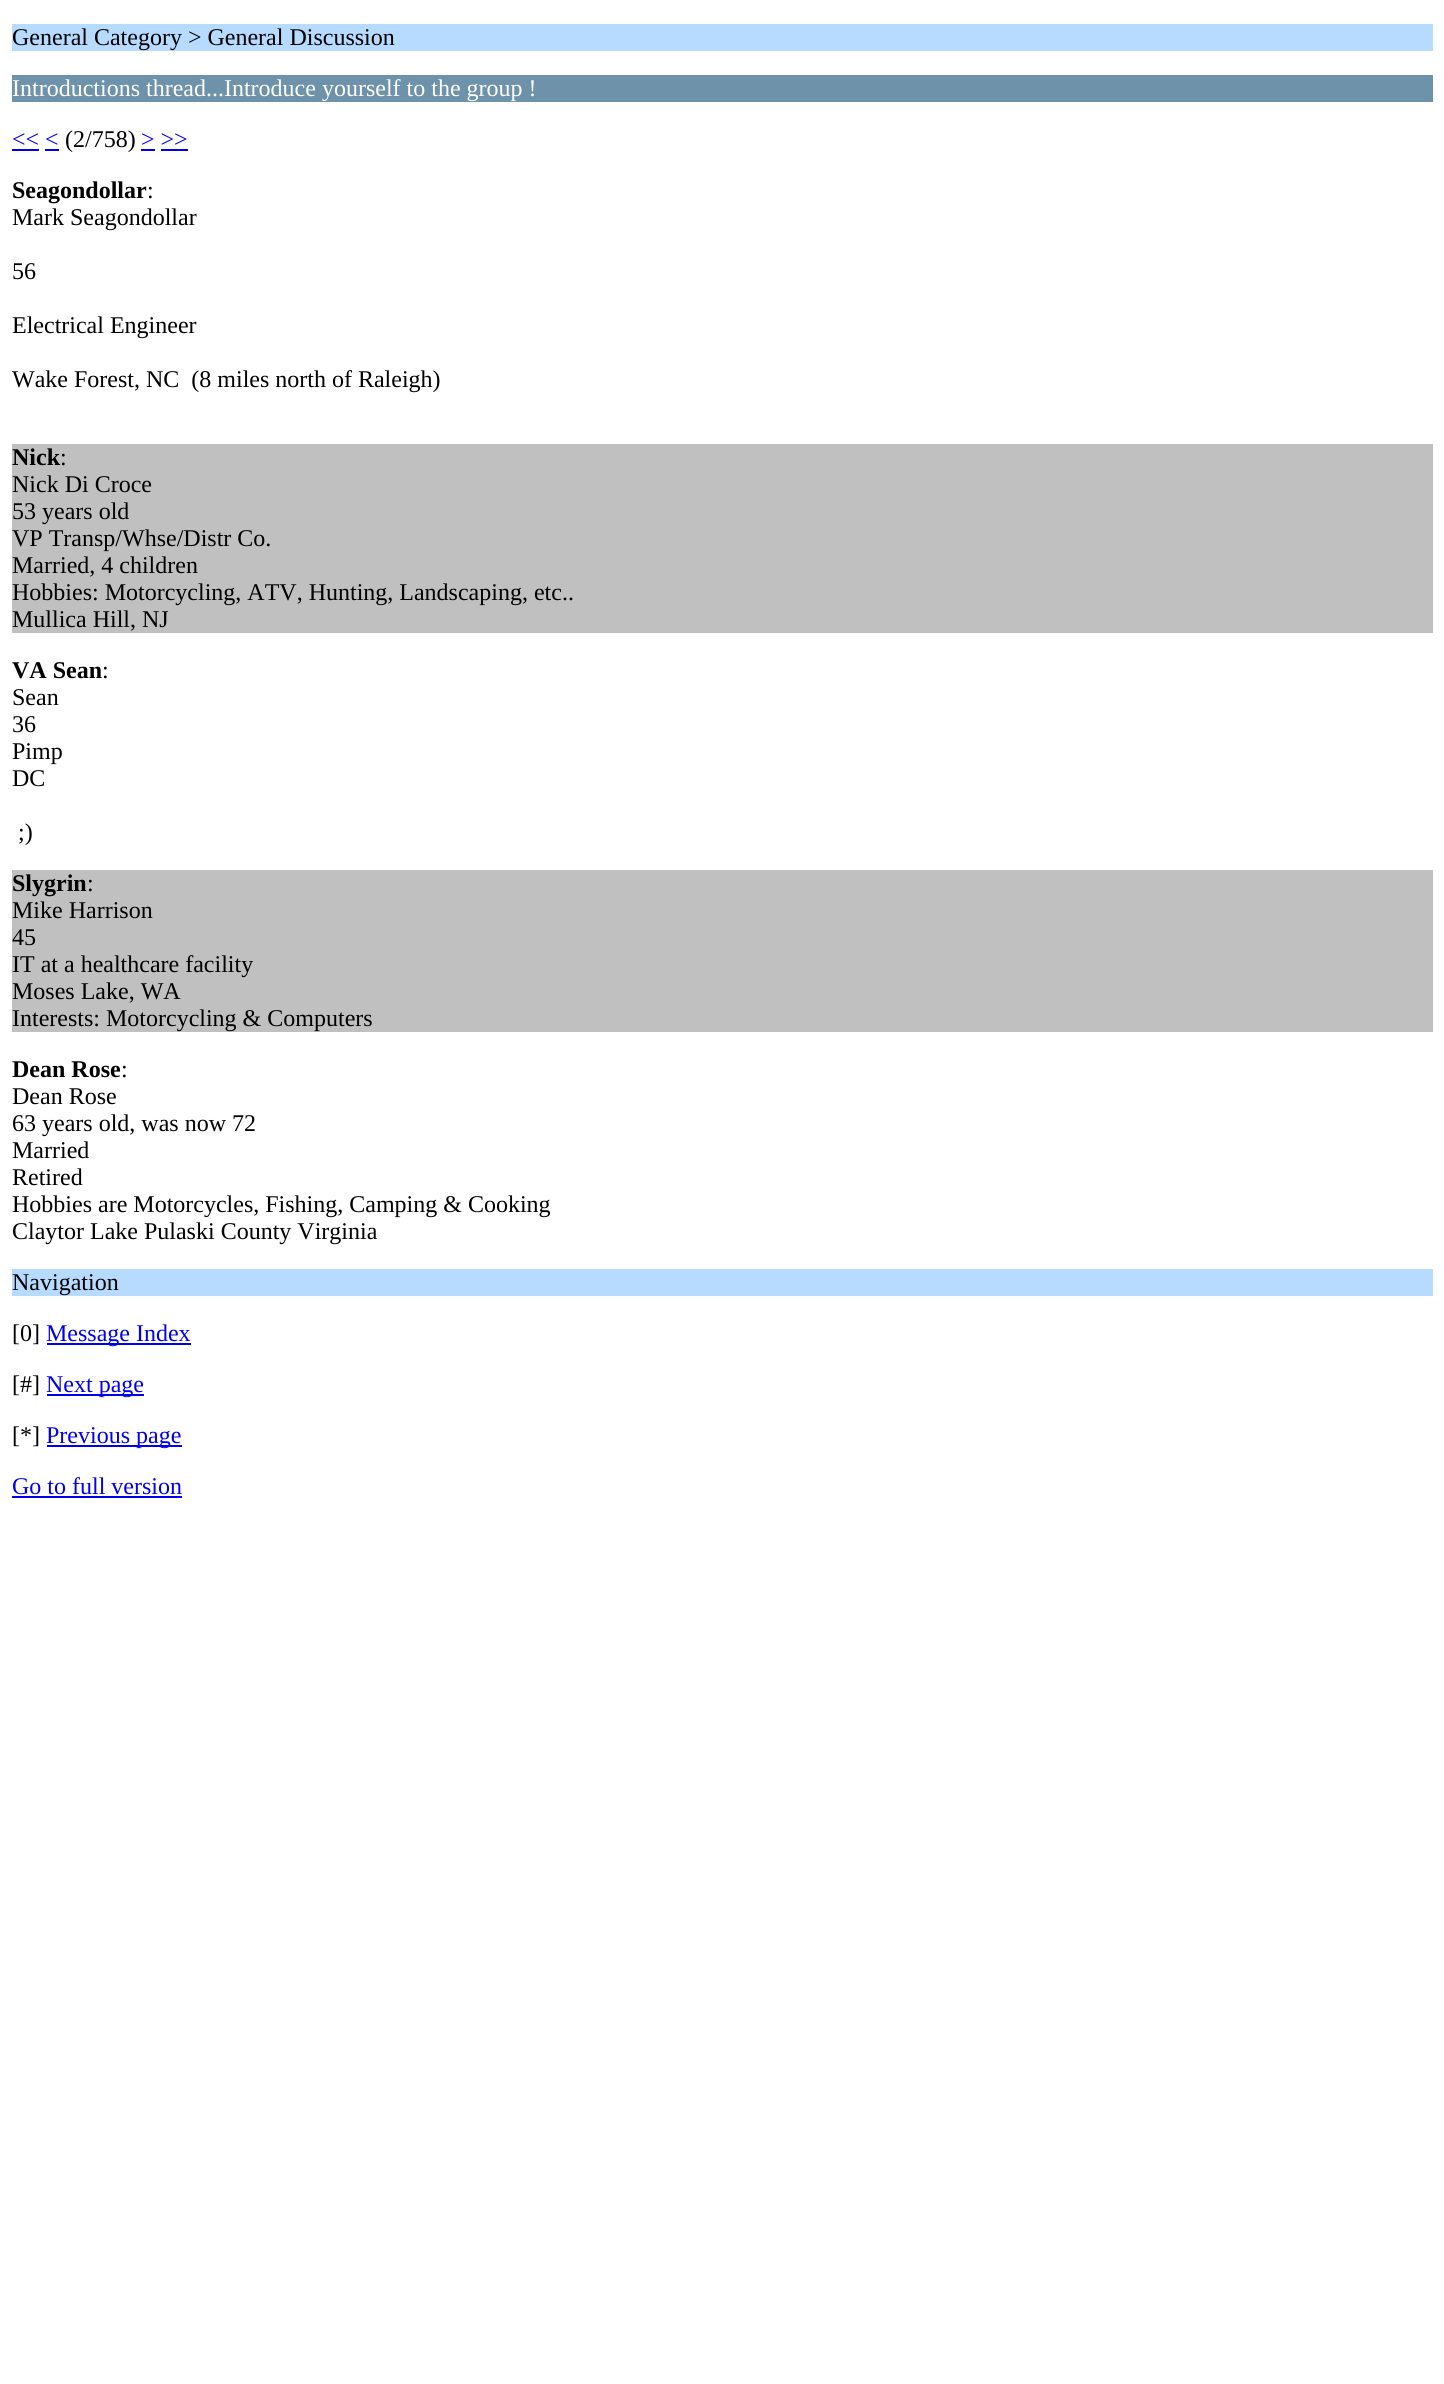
import math
import cairo

surface = cairo.ImageSurface(cairo.FORMAT_RGB24, 1444, 2384)
ctx = cairo.Context(surface)
options = cairo.FontOptions()
options.set_hint_metrics(cairo.HINT_METRICS_OFF)
options.set_hint_style(cairo.HINT_STYLE_NONE)
ctx.set_font_options(options)
ctx.set_miter_limit(4)


def set_color(code):
    ctx.set_source_rgb(*(v / 255 for v in bytes.fromhex(code[-6:])))


def draw_text(x, y, s, family, size, color, bold=False, italic=False):
    ctx.select_font_face(family, cairo.FONT_SLANT_ITALIC if italic else cairo.FONT_SLANT_NORMAL, cairo.FONT_WEIGHT_BOLD if bold else cairo.FONT_WEIGHT_NORMAL)
    ctx.set_font_size(size)
    set_color(color)
    ctx.move_to(x, y)
    ctx.show_text(s)


def fill_rect(x, y, w, h, color):
    set_color(color)
    ctx.rectangle(x, y, w, h)
    ctx.fill()


set_color("#ffffff")
ctx.paint()
fill_rect(12, 24, 1421, 27, "#b6dbff")
draw_text(12, 45, "General Category > General Discussion", "Liberation Serif", 24, "#000000")
fill_rect(12, 75, 1421, 27, "#6d92aa")
draw_text(12, 96, "Introductions thread...Introduce yourself to the group !", "Liberation Serif", 24, "#ffffff")
draw_text(12, 147, "<< <", "Liberation Serif", 24, "#0000ee")
fill_rect(12, 149, 27, 2, "#0000ee")
draw_text(65, 147, "(2/758)", "Liberation Serif", 24, "#000000")
draw_text(141, 147, "> >>", "Liberation Serif", 24, "#0000ee")
fill_rect(141, 149, 14, 2, "#0000ee")
fill_rect(45, 149, 14, 2, "#0000ee")
fill_rect(161, 149, 27, 2, "#0000ee")
draw_text(12, 198, "Seagondollar", "Liberation Serif", 24, "#000000", bold=True)
draw_text(147, 198, ":", "Liberation Serif", 24, "#000000")
draw_text(12, 225, "Mark Seagondollar", "Liberation Serif", 24, "#000000")
draw_text(12, 279, "56", "Liberation Serif", 24, "#000000")
draw_text(12, 333, "Electrical Engineer", "Liberation Serif", 24, "#000000")
draw_text(12, 387, "Wake Forest, NC  (8 miles north of Raleigh)", "Liberation Serif", 24, "#000000")
fill_rect(12, 444, 1421, 189, "#c0c0c0")
draw_text(12, 465, "Nick", "Liberation Serif", 24, "#000000", bold=True)
draw_text(60, 465, ":", "Liberation Serif", 24, "#000000")
draw_text(12, 492, "Nick Di Croce", "Liberation Serif", 24, "#000000")
draw_text(12, 519, "53 years old", "Liberation Serif", 24, "#000000")
draw_text(12, 546, "VP Transp/Whse/Distr Co.", "Liberation Serif", 24, "#000000")
draw_text(12, 573, "Married, 4 children", "Liberation Serif", 24, "#000000")
draw_text(12, 600, "Hobbies: Motorcycling, ATV, Hunting, Landscaping, etc..", "Liberation Serif", 24, "#000000")
draw_text(12, 627, "Mullica Hill, NJ", "Liberation Serif", 24, "#000000")
draw_text(12, 678, "VA Sean", "Liberation Serif", 24, "#000000", bold=True)
draw_text(102, 678, ":", "Liberation Serif", 24, "#000000")
draw_text(12, 705, "Sean", "Liberation Serif", 24, "#000000")
draw_text(12, 732, "36", "Liberation Serif", 24, "#000000")
draw_text(12, 759, "Pimp", "Liberation Serif", 24, "#000000")
draw_text(12, 786, "DC", "Liberation Serif", 24, "#000000")
draw_text(18, 840, ";)", "Liberation Serif", 24, "#000000")
fill_rect(12, 870, 1421, 162, "#c0c0c0")
draw_text(12, 891, "Slygrin", "Liberation Serif", 24, "#000000", bold=True)
draw_text(87, 891, ":", "Liberation Serif", 24, "#000000")
draw_text(12, 918, "Mike Harrison", "Liberation Serif", 24, "#000000")
draw_text(12, 945, "45", "Liberation Serif", 24, "#000000")
draw_text(12, 972, "IT at a healthcare facility", "Liberation Serif", 24, "#000000")
draw_text(12, 999, "Moses Lake, WA", "Liberation Serif", 24, "#000000")
draw_text(12, 1026, "Interests: Motorcycling & Computers", "Liberation Serif", 24, "#000000")
draw_text(12, 1077, "Dean Rose", "Liberation Serif", 24, "#000000", bold=True)
draw_text(121, 1077, ":", "Liberation Serif", 24, "#000000")
draw_text(12, 1104, "Dean Rose", "Liberation Serif", 24, "#000000")
draw_text(12, 1131, "63 years old, was now 72", "Liberation Serif", 24, "#000000")
draw_text(12, 1158, "Married", "Liberation Serif", 24, "#000000")
draw_text(12, 1185, "Retired", "Liberation Serif", 24, "#000000")
draw_text(12, 1212, "Hobbies are Motorcycles, Fishing, Camping & Cooking", "Liberation Serif", 24, "#000000")
draw_text(12, 1239, "Claytor Lake Pulaski County Virginia", "Liberation Serif", 24, "#000000")
fill_rect(12, 1269, 1421, 27, "#b6dbff")
draw_text(12, 1290, "Navigation", "Liberation Serif", 24, "#000000")
draw_text(12, 1341, "[0]", "Liberation Serif", 24, "#000000")
fill_rect(47, 1343, 144, 2, "#0000ee")
draw_text(46, 1341, "Message Index", "Liberation Serif", 24, "#0000ee")
draw_text(12, 1392, "[#]", "Liberation Serif", 24, "#000000")
fill_rect(47, 1394, 97, 2, "#0000ee")
draw_text(46, 1392, "Next page", "Liberation Serif", 24, "#0000ee")
draw_text(12, 1443, "[*]", "Liberation Serif", 24, "#000000")
fill_rect(47, 1445, 135, 2, "#0000ee")
draw_text(46, 1443, "Previous page", "Liberation Serif", 24, "#0000ee")
draw_text(12, 1494, "Go to full version", "Liberation Serif", 24, "#0000ee")
fill_rect(12, 1496, 170, 2, "#0000ee")
surface.write_to_png("output.png")
